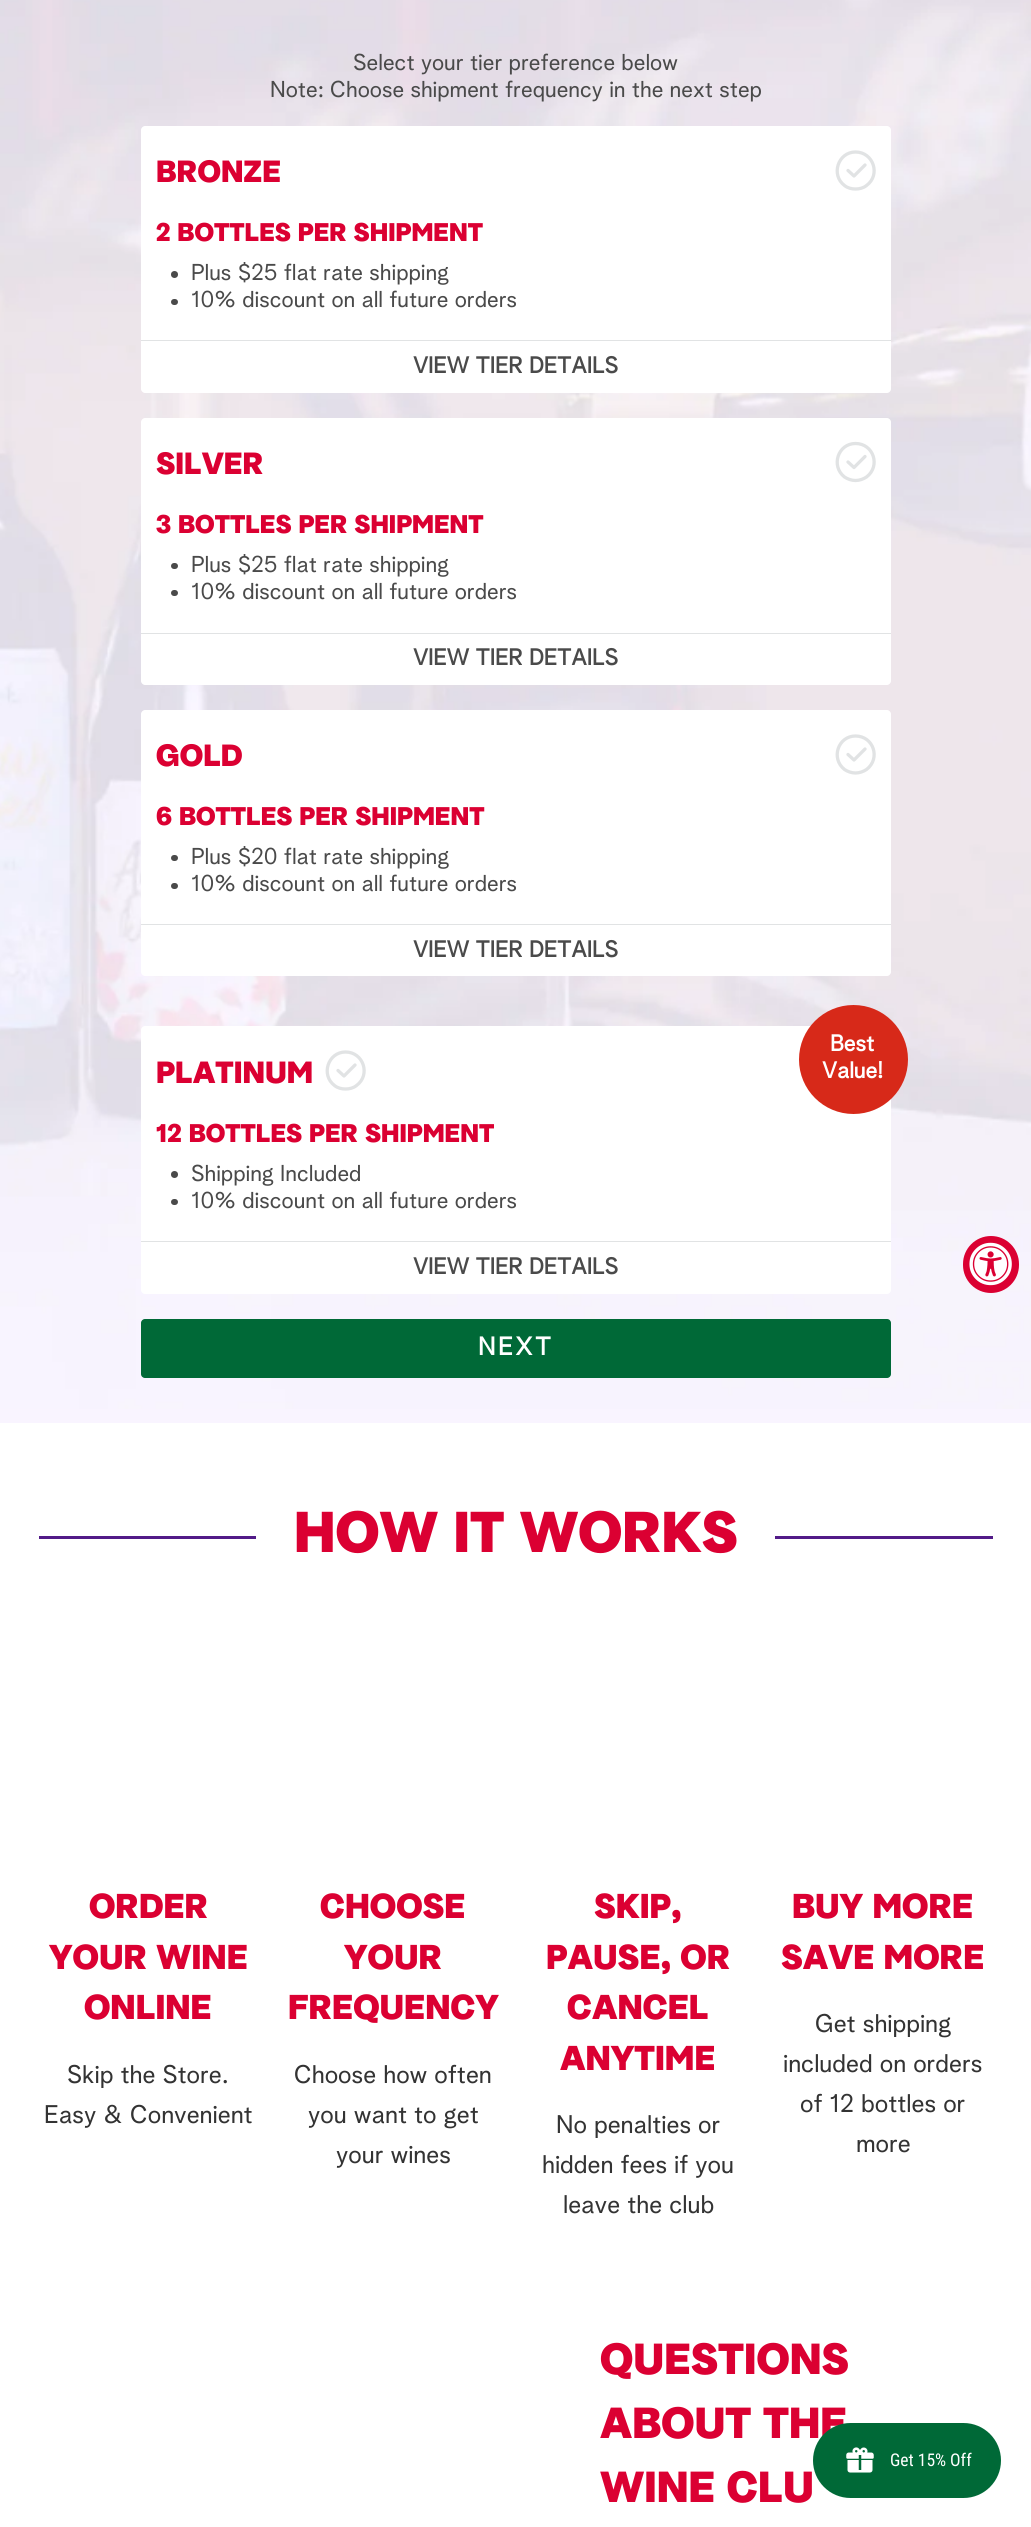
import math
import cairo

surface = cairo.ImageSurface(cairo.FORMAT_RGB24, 1031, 2527)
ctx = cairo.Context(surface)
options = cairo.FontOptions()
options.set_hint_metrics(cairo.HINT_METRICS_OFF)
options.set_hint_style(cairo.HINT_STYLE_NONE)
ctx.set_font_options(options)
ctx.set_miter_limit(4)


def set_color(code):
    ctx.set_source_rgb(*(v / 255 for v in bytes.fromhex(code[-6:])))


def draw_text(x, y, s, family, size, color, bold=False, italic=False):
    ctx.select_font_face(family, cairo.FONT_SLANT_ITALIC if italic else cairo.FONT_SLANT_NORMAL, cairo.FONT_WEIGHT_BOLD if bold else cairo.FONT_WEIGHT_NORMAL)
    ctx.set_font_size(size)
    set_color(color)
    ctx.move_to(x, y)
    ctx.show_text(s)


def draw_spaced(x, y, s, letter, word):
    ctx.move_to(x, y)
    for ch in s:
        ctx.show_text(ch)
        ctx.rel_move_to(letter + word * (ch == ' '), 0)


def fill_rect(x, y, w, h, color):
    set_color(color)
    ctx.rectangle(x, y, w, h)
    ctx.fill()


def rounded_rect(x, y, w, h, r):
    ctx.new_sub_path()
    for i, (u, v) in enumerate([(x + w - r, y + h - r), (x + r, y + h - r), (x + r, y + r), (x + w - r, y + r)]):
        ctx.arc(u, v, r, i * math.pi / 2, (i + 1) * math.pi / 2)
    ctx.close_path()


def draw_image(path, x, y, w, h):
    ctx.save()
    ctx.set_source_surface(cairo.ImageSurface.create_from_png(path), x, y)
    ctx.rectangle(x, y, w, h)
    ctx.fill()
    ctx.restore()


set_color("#ffffff")
ctx.paint()
fill_rect(0, 1409, 1031, 14, "#f9f4ff")
draw_image("assets/img1.png", 0, 0, 1031, 1409)
draw_text(353, 70, "Select your tier preference below", "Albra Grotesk", 22.5, "#4a4a4a")
draw_text(270, 97, "Note: Choose shipment frequency in the next step", "Albra Grotesk", 22.5, "#4a4a4a")
set_color("#ffffff")
ctx.new_path()
ctx.move_to(145, 126)
ctx.line_to(887, 126)
ctx.curve_to(889, 126, 891, 128, 891, 130)
ctx.line_to(891, 340)
ctx.line_to(141, 340)
ctx.line_to(141, 130)
ctx.curve_to(141, 128, 143, 126, 145, 126)
ctx.close_path()
ctx.fill()
draw_text(156, 182, "BRONZE", "Albra Grotesk Black", 30, "#db0032")
ctx.new_path()
ctx.move_to(855.5, 189)
ctx.curve_to(859.5, 189, 863.5, 188, 866.5, 185.5)
ctx.curve_to(881, 175, 873.5, 152, 855.5, 152)
ctx.curve_to(838, 152, 830.5, 175, 844.5, 185.5)
ctx.curve_to(847.5, 188, 851.5, 189, 855.5, 189)
ctx.close_path()
set_color("#e1e3e4")
ctx.set_line_width(3.3)
ctx.set_line_join(cairo.LINE_JOIN_ROUND)
ctx.stroke()
ctx.new_path()
ctx.move_to(848, 170.5)
ctx.line_to(854, 176)
ctx.line_to(865, 165)
ctx.set_line_cap(cairo.LINE_CAP_ROUND)
ctx.stroke()
draw_text(156, 241, "2 BOTTLES PER SHIPMENT", "Albra Grotesk Black", 25, "#db0032")
set_color("#4a4a4a")
ctx.new_path()
ctx.arc(174.5, 274.5, 3.5, 0, 2 * math.pi)
ctx.fill()
draw_text(191, 280, "Plus $25 flat rate shipping", "Albra Grotesk", 22.5, "#4a4a4a")
rounded_rect(171, 299, 7, 6, 3)
ctx.fill()
draw_text(191, 307, "10% discount on all future orders", "Albra Grotesk", 22.5, "#4a4a4a")
set_color("#ffffff")
ctx.new_path()
ctx.move_to(141, 340)
ctx.line_to(891, 340)
ctx.line_to(891, 389)
ctx.curve_to(891, 391, 889, 393, 887, 393)
ctx.line_to(145, 393)
ctx.curve_to(143, 393, 141, 391, 141, 389)
ctx.close_path()
ctx.fill()
fill_rect(141, 340, 750, 1, "#e1e3e4")
draw_text(413, 373, "VIEW TIER DETAILS", "Albra Grotesk", 22.5, "#4a4a4a", bold=True)
set_color("#ffffff")
ctx.new_path()
ctx.move_to(145, 418)
ctx.line_to(887, 418)
ctx.curve_to(889, 418, 891, 420, 891, 422)
ctx.line_to(891, 633)
ctx.line_to(141, 633)
ctx.line_to(141, 422)
ctx.curve_to(141, 420, 143, 418, 145, 418)
ctx.close_path()
ctx.fill()
draw_text(156, 474, "SILVER", "Albra Grotesk Black", 30, "#db0032")
ctx.new_path()
ctx.move_to(855.5, 480.5)
ctx.curve_to(859.5, 480.5, 863.5, 479, 866.5, 477)
ctx.curve_to(881, 466, 873.5, 443.5, 855.5, 443.5)
ctx.curve_to(838, 443.5, 830.5, 466, 844.5, 477)
ctx.curve_to(847.5, 479, 851.5, 480.5, 855.5, 480.5)
ctx.close_path()
set_color("#e1e3e4")
ctx.set_line_cap(cairo.LINE_CAP_BUTT)
ctx.stroke()
ctx.new_path()
ctx.move_to(848, 462)
ctx.line_to(854, 467.5)
ctx.line_to(865, 456.5)
ctx.set_line_cap(cairo.LINE_CAP_ROUND)
ctx.stroke()
draw_text(156, 533, "3 BOTTLES PER SHIPMENT", "Albra Grotesk Black", 25, "#db0032")
set_color("#4a4a4a")
rounded_rect(171, 563, 7, 6, 3)
ctx.fill()
draw_text(191, 572, "Plus $25 flat rate shipping", "Albra Grotesk", 22.5, "#4a4a4a")
rounded_rect(171, 590, 7, 6, 3)
ctx.fill()
draw_text(191, 599, "10% discount on all future orders", "Albra Grotesk", 22.5, "#4a4a4a")
set_color("#ffffff")
ctx.new_path()
ctx.move_to(141, 633)
ctx.line_to(891, 633)
ctx.line_to(891, 681)
ctx.curve_to(891, 683, 889, 685, 887, 685)
ctx.line_to(145, 685)
ctx.curve_to(143, 685, 141, 683, 141, 681)
ctx.close_path()
ctx.fill()
fill_rect(141, 633, 750, 1, "#e1e3e4")
draw_text(413, 665, "VIEW TIER DETAILS", "Albra Grotesk", 22.5, "#4a4a4a", bold=True)
set_color("#ffffff")
ctx.new_path()
ctx.move_to(145, 710)
ctx.line_to(887, 710)
ctx.curve_to(889, 710, 891, 712, 891, 714)
ctx.line_to(891, 924)
ctx.line_to(141, 924)
ctx.line_to(141, 714)
ctx.curve_to(141, 712, 143, 710, 145, 710)
ctx.close_path()
ctx.fill()
draw_text(156, 766, "GOLD", "Albra Grotesk Black", 30, "#db0032")
ctx.new_path()
ctx.move_to(855.5, 773)
ctx.curve_to(859.5, 773, 863.5, 771.5, 866.5, 769.5)
ctx.curve_to(881, 758.5, 873.5, 736, 855.5, 736)
ctx.curve_to(838, 736, 830.5, 758.5, 844.5, 769.5)
ctx.curve_to(847.5, 771.5, 851.5, 773, 855.5, 773)
ctx.close_path()
set_color("#e1e3e4")
ctx.set_line_cap(cairo.LINE_CAP_BUTT)
ctx.stroke()
ctx.new_path()
ctx.move_to(848, 754.5)
ctx.line_to(854, 760)
ctx.line_to(865, 749)
ctx.set_line_cap(cairo.LINE_CAP_ROUND)
ctx.stroke()
draw_text(156, 825, "6 BOTTLES PER SHIPMENT", "Albra Grotesk Black", 25, "#db0032")
set_color("#4a4a4a")
rounded_rect(171, 855, 7, 6, 3)
ctx.fill()
draw_text(191, 864, "Plus $20 flat rate shipping", "Albra Grotesk", 22.5, "#4a4a4a")
rounded_rect(171, 883, 7, 6, 3)
ctx.fill()
draw_text(191, 891, "10% discount on all future orders", "Albra Grotesk", 22.5, "#4a4a4a")
set_color("#ffffff")
ctx.new_path()
ctx.move_to(141, 924)
ctx.line_to(891, 924)
ctx.line_to(891, 972)
ctx.curve_to(891, 974, 889, 976, 887, 976)
ctx.line_to(145, 976)
ctx.curve_to(143, 976, 141, 974, 141, 972)
ctx.close_path()
ctx.fill()
fill_rect(141, 924, 750, 1, "#e1e3e4")
draw_text(413, 957, "VIEW TIER DETAILS", "Albra Grotesk", 22.5, "#4a4a4a", bold=True)
set_color("#ffffff")
ctx.new_path()
ctx.move_to(145, 1026)
ctx.line_to(887, 1026)
ctx.curve_to(889, 1026, 891, 1028, 891, 1030)
ctx.line_to(891, 1241)
ctx.line_to(141, 1241)
ctx.line_to(141, 1030)
ctx.curve_to(141, 1028, 143, 1026, 145, 1026)
ctx.close_path()
ctx.fill()
draw_text(156, 1083, "PLATINUM", "Albra Grotesk Black", 30, "#db0032")
ctx.new_path()
ctx.move_to(345.5, 1089)
ctx.curve_to(349.5, 1089, 353.5, 1088, 356.5, 1085.5)
ctx.curve_to(371, 1075, 363.5, 1052, 345.5, 1052)
ctx.curve_to(328, 1052, 320.5, 1075, 334.5, 1085.5)
ctx.curve_to(337.5, 1088, 341.5, 1089, 345.5, 1089)
ctx.close_path()
set_color("#e1e3e4")
ctx.set_line_cap(cairo.LINE_CAP_BUTT)
ctx.stroke()
ctx.new_path()
ctx.move_to(338, 1070.5)
ctx.line_to(344, 1076)
ctx.line_to(355, 1065)
ctx.set_line_cap(cairo.LINE_CAP_ROUND)
ctx.stroke()
set_color("#d72919")
ctx.arc(853.5, 1059.5, 54.5, 0, 2 * math.pi)
ctx.fill()
draw_text(830, 1051, "Best", "Albra Grotesk", 22.5, "#ffffff", bold=True)
draw_text(822, 1078, "Value!", "Albra Grotesk", 22.5, "#ffffff", bold=True)
draw_text(156, 1142, "12 BOTTLES PER SHIPMENT", "Albra Grotesk Black", 25, "#db0032")
set_color("#4a4a4a")
ctx.new_path()
ctx.arc(174.5, 1174.5, 3.5, 0, 2 * math.pi)
ctx.fill()
draw_text(191, 1181, "Shipping Included", "Albra Grotesk", 22.5, "#4a4a4a")
rounded_rect(171, 1199, 7, 6, 3)
ctx.fill()
draw_text(191, 1208, "10% discount on all future orders", "Albra Grotesk", 22.5, "#4a4a4a")
set_color("#ffffff")
ctx.new_path()
ctx.move_to(141, 1241)
ctx.line_to(891, 1241)
ctx.line_to(891, 1290)
ctx.curve_to(891, 1292, 889, 1294, 887, 1294)
ctx.line_to(145, 1294)
ctx.curve_to(143, 1294, 141, 1292, 141, 1290)
ctx.close_path()
ctx.fill()
fill_rect(141, 1241, 750, 1, "#e1e3e4")
draw_text(413, 1274, "VIEW TIER DETAILS", "Albra Grotesk", 22.5, "#4a4a4a", bold=True)
set_color("#006937")
rounded_rect(141, 1319, 750, 59, 4)
ctx.fill()
ctx.set_font_size(25)
set_color("#ffffff")
draw_spaced(478, 1355, "NEXT", 2.5, 0)
fill_rect(39, 1536, 217, 3, "#521b88")
draw_text(294, 1552, "HOW IT WORKS", "Albra Grotesk Black", 56.25, "#db0032")
fill_rect(775, 1536, 218, 3, "#521b88")
draw_text(89, 1918, "ORDER", "Albra Grotesk Black", 33.75, "#db0032")
draw_text(49, 1969, "YOUR WINE", "Albra Grotesk Black", 33.75, "#db0032")
draw_text(84, 2019, "ONLINE", "Albra Grotesk Black", 33.75, "#db0032")
draw_text(67, 2083, "Skip the Store.", "Albra Grotesk", 25, "#333333")
draw_text(44, 2123, "Easy & Convenient", "Albra Grotesk", 25, "#333333")
draw_text(320, 1918, "CHOOSE", "Albra Grotesk Black", 33.75, "#db0032")
draw_text(344, 1969, "YOUR", "Albra Grotesk Black", 33.75, "#db0032")
draw_text(288, 2019, "FREQUENCY", "Albra Grotesk Black", 33.75, "#db0032")
draw_text(294, 2083, "Choose how often", "Albra Grotesk", 25, "#333333")
draw_text(308, 2123, "you want to get", "Albra Grotesk", 25, "#333333")
draw_text(336, 2163, "your wines", "Albra Grotesk", 25, "#333333")
draw_text(594, 1918, "SKIP,", "Albra Grotesk Black", 33.75, "#db0032")
draw_text(546, 1969, "PAUSE, OR", "Albra Grotesk Black", 33.75, "#db0032")
draw_text(567, 2019, "CANCEL", "Albra Grotesk Black", 33.75, "#db0032")
draw_text(560, 2070, "ANYTIME", "Albra Grotesk Black", 33.75, "#db0032")
draw_text(556, 2133, "No penalties or", "Albra Grotesk", 25, "#333333")
draw_text(542, 2173, "hidden fees if you", "Albra Grotesk", 25, "#333333")
draw_text(563, 2213, "leave the club", "Albra Grotesk", 25, "#333333")
draw_text(792, 1918, "BUY MORE", "Albra Grotesk Black", 33.75, "#db0032")
draw_text(781, 1969, "SAVE MORE", "Albra Grotesk Black", 33.75, "#db0032")
draw_text(815, 2032, "Get shipping", "Albra Grotesk", 25, "#333333")
draw_text(783, 2072, "included on orders", "Albra Grotesk", 25, "#333333")
draw_text(800, 2112, "of 12 bottles or", "Albra Grotesk", 25, "#333333")
draw_text(856, 2152, "more", "Albra Grotesk", 25, "#333333")
draw_text(600, 2374, "QUESTIONS", "Albra Grotesk Black", 42.5, "#db0032")
draw_text(600, 2438, "ABOUT THE", "Albra Grotesk Black", 42.5, "#db0032")
draw_text(600, 2502, "WINE CLU", "Albra Grotesk Black", 42.5, "#db0032")
rounded_rect(963, 1236, 56, 57, 28)
ctx.fill()
draw_image("assets/img2.png", 969, 1242, 43, 44)
set_color("#006937")
rounded_rect(813, 2423, 188, 75, 37.5)
ctx.fill()
draw_image("assets/img3.png", 846, 2447, 28, 26)
draw_text(890, 2466, "Get 15% Off", "Roboto Condensed", 17.5, "#ffffff")
surface.write_to_png("output.png")
